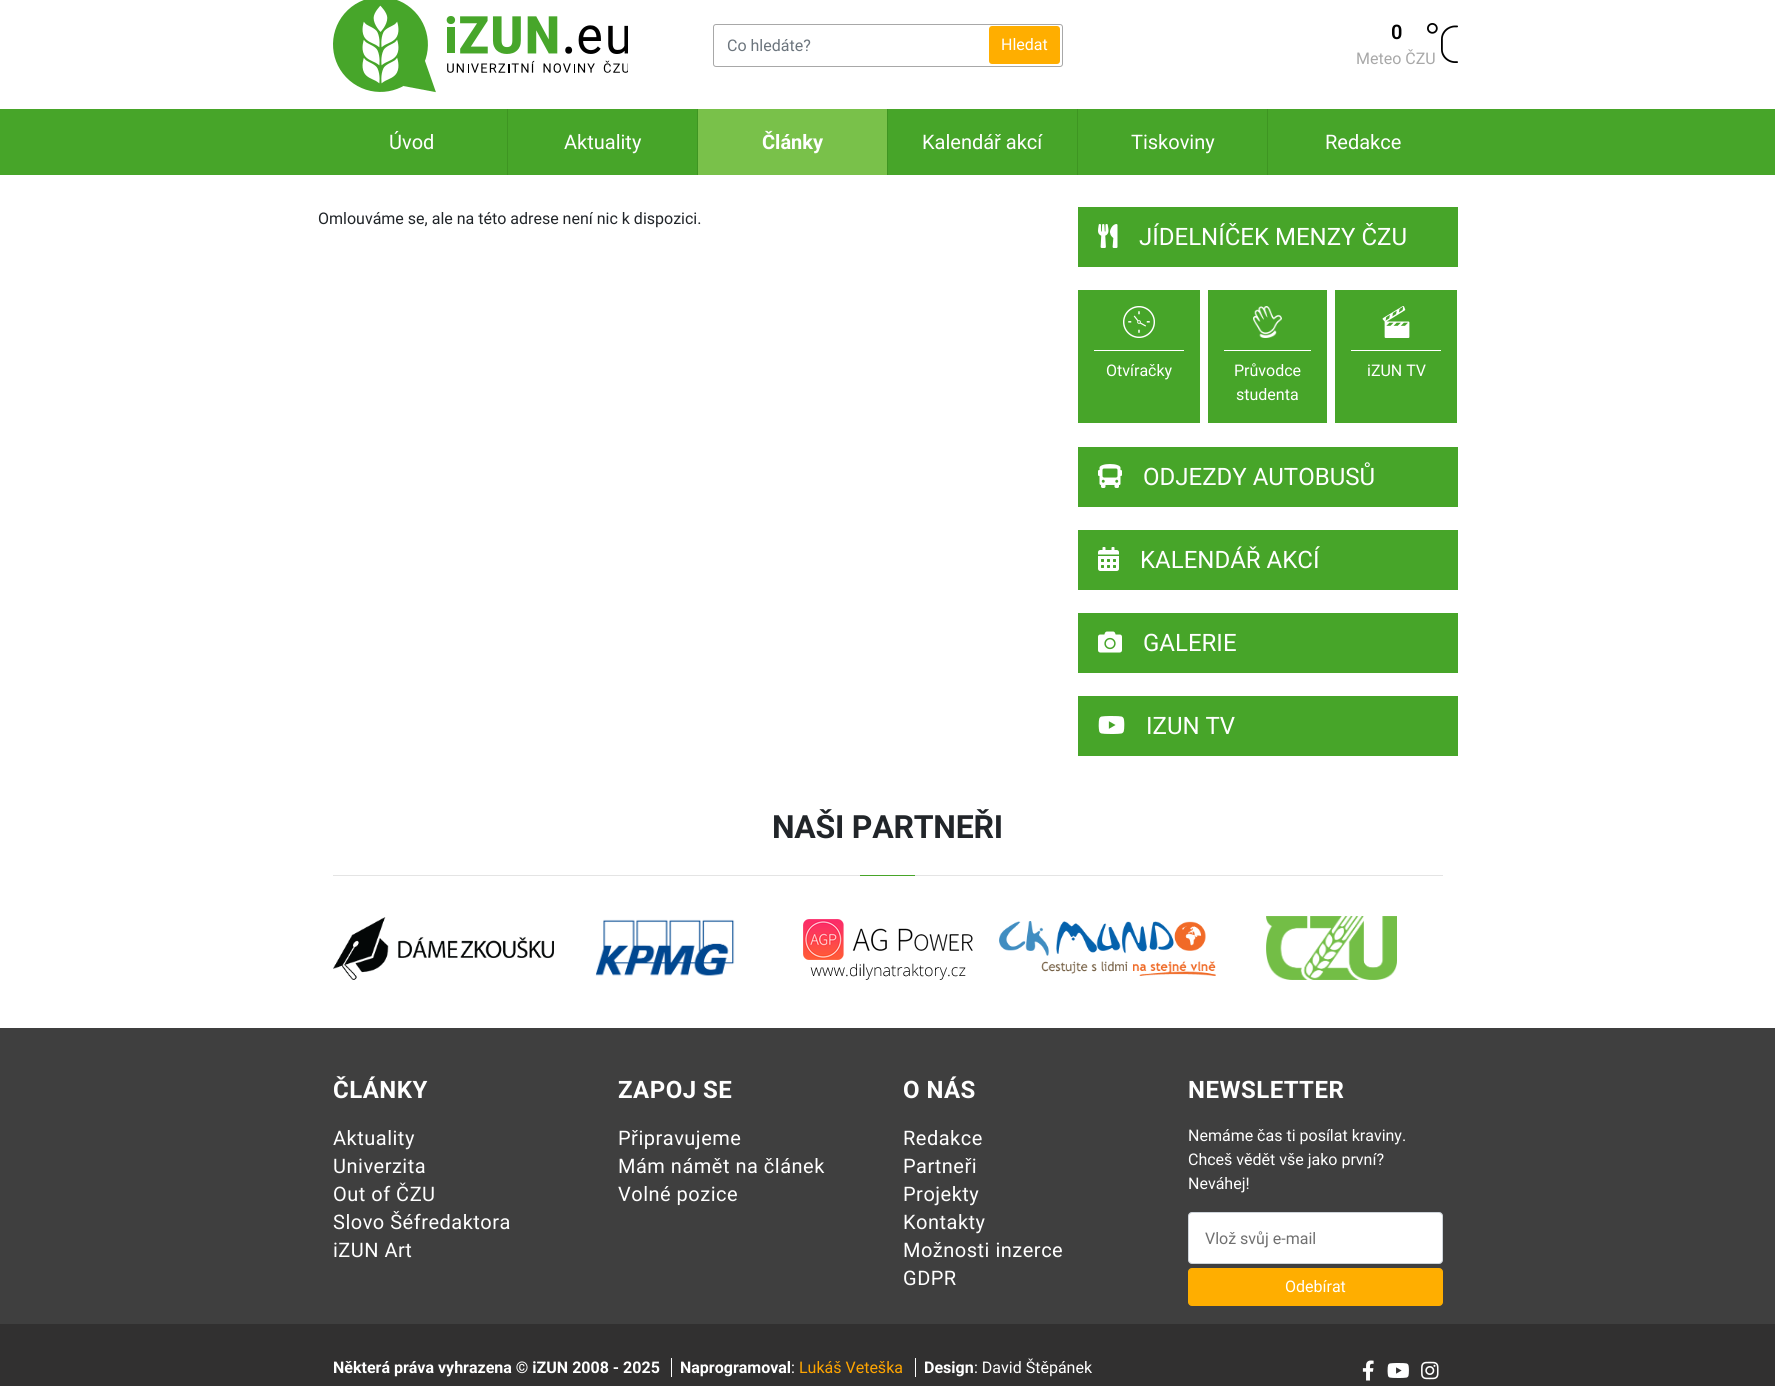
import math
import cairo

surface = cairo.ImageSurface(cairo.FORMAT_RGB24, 1775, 1386)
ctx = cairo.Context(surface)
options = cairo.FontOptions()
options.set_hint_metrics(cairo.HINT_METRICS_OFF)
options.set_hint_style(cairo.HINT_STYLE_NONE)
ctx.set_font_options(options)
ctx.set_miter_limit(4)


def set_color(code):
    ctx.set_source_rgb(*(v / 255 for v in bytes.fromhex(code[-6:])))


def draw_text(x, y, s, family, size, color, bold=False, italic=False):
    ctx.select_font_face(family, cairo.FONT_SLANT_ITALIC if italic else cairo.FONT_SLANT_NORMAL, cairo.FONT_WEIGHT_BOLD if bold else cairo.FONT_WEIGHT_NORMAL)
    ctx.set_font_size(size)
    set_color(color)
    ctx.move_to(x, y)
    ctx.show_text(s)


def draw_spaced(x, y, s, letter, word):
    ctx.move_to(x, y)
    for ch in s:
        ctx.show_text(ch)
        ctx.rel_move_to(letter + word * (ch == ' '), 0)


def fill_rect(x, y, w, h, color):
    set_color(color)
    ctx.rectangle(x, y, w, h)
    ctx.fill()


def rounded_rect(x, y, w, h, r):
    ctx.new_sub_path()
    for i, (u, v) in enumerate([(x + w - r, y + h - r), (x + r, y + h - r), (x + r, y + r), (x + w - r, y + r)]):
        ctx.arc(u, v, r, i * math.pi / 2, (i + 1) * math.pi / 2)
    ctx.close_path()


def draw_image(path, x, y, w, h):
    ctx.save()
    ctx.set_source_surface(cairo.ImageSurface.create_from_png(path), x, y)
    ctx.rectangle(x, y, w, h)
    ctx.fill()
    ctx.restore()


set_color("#ffffff")
ctx.paint()
draw_image("assets/img1.png", 333, 0, 295, 93)
rounded_rect(713.5, 24.5, 349, 42, 2.5)
set_color("#a8a8a8")
ctx.set_line_width(1)
ctx.stroke()
draw_text(727, 51, "Co hledáte?", "Roboto", 16, "#6c757d")
set_color("#ffae00")
rounded_rect(989, 26, 71, 38, 3)
ctx.fill()
draw_text(1001, 50, "Hledat", "Roboto", 16, "#ffffff")
draw_text(1391, 39, "0", "Roboto SemiBold", 20, "#000000")
draw_text(1356, 64, "Meteo ČZU", "Roboto", 16, "#a8a8a8")
draw_image("assets/img2.png", 1427, 23, 31, 40)
fill_rect(0, 109, 1775, 66, "#47a529")
fill_rect(507, 109, 1, 66, "#3e9522")
draw_text(389, 149, "Úvod", "Roboto", 20, "#ffffff")
fill_rect(697, 109, 1, 66, "#3e9522")
draw_text(564, 149, "Aktuality", "Roboto", 20, "#ffffff")
fill_rect(698, 109, 189, 66, "#79c14a")
fill_rect(887, 109, 1, 66, "#3e9522")
draw_text(762, 149, "Články", "Roboto", 20, "#ffffff", bold=True)
fill_rect(1077, 109, 1, 66, "#3e9522")
draw_text(922, 149, "Kalendář akcí", "Roboto", 20, "#ffffff")
fill_rect(1267, 109, 1, 66, "#3e9522")
draw_text(1131, 149, "Tiskoviny", "Roboto", 20, "#ffffff")
draw_text(1325, 149, "Redakce", "Roboto", 20, "#ffffff")
draw_text(318, 224, "Omlouváme se, ale na této adrese není nic k dispozici.", "Roboto", 16, "#212529")
fill_rect(1078, 207, 380, 60, "#47a529")
draw_image("assets/img3.png", 1098, 224, 20, 24)
draw_text(1139, 245, "JÍDELNÍČEK MENZY ČZU", "Roboto", 24, "#ffffff")
fill_rect(1078, 290, 122, 133, "#47a529")
draw_image("assets/img4.png", 1123, 306, 32, 32)
fill_rect(1094, 350, 90, 1, "#ffffff")
draw_text(1106, 376, "Otvíračky", "Roboto", 16, "#ffffff")
fill_rect(1208, 290, 119, 133, "#47a529")
draw_image("assets/img5.png", 1253, 306, 29, 32)
fill_rect(1224, 350, 87, 1, "#ffffff")
draw_text(1234, 376, "Průvodce", "Roboto", 16, "#ffffff")
draw_text(1236, 400, "studenta", "Roboto", 16, "#ffffff")
fill_rect(1335, 290, 122, 133, "#47a529")
draw_image("assets/img6.png", 1382, 306, 28, 32)
fill_rect(1351, 350, 90, 1, "#ffffff")
draw_text(1367, 376, "iZUN TV", "Roboto", 16, "#ffffff")
fill_rect(1078, 447, 380, 60, "#47a529")
draw_image("assets/img7.png", 1098, 464, 24, 24)
draw_text(1143, 485, "ODJEZDY AUTOBUSŮ", "Roboto", 24, "#ffffff")
fill_rect(1078, 530, 380, 60, "#47a529")
draw_image("assets/img8.png", 1098, 547, 21, 24)
draw_text(1140, 568, "KALENDÁŘ AKCÍ", "Roboto", 24, "#ffffff")
fill_rect(1078, 613, 380, 60, "#47a529")
draw_image("assets/img9.png", 1098, 631, 24, 22)
draw_text(1143, 651, "GALERIE", "Roboto", 24, "#ffffff")
fill_rect(1078, 696, 380, 60, "#47a529")
draw_image("assets/img10.png", 1098, 716, 27, 18)
draw_text(1146, 734, "IZUN TV", "Roboto", 24, "#ffffff")
fill_rect(333, 875, 1110, 1, "#e4e4e4")
ctx.select_font_face("Roboto", cairo.FONT_SLANT_NORMAL, cairo.FONT_WEIGHT_BOLD)
ctx.set_font_size(32)
set_color("#212529")
draw_spaced(772, 838, "NAŠI PARTNEŘI", -0.25, 0)
fill_rect(860, 875, 55, 1, "#47a529")
draw_image("assets/img11.png", 333, 917, 221, 63)
draw_image("assets/img12.png", 595, 919, 140, 57)
draw_image("assets/img13.png", 803, 919, 170, 61)
draw_image("assets/img14.png", 999, 921, 217, 55)
draw_image("assets/img15.png", 1266, 916, 131, 64)
fill_rect(0, 1028, 1775, 296, "#3f3f3f")
ctx.set_font_size(24)
set_color("#ffffff")
draw_spaced(333, 1098, "ČLÁNKY", 0.5, 0)
ctx.select_font_face("Roboto")
ctx.set_font_size(20)
draw_spaced(333, 1145, "Aktuality", 0.5, 0)
draw_spaced(333, 1173, "Univerzita", 0.5, 0)
draw_spaced(333, 1201, "Out of ČZU", 0.5, 0)
draw_spaced(333, 1229, "Slovo Šéfredaktora", 0.5, 0)
draw_spaced(333, 1257, "iZUN Art", 0.5, 0)
ctx.select_font_face("Roboto", cairo.FONT_SLANT_NORMAL, cairo.FONT_WEIGHT_BOLD)
ctx.set_font_size(24)
draw_spaced(618, 1098, "ZAPOJ SE", 0.5, 0)
ctx.select_font_face("Roboto")
ctx.set_font_size(20)
draw_spaced(618, 1145, "Připravujeme", 0.5, 0)
draw_spaced(618, 1173, "Mám námět na článek", 0.5, 0)
draw_spaced(618, 1201, "Volné pozice", 0.5, 0)
ctx.select_font_face("Roboto", cairo.FONT_SLANT_NORMAL, cairo.FONT_WEIGHT_BOLD)
ctx.set_font_size(24)
draw_spaced(903, 1098, "O NÁS", 0.5, 0)
ctx.select_font_face("Roboto")
ctx.set_font_size(20)
draw_spaced(903, 1145, "Redakce", 0.5, 0)
draw_spaced(903, 1173, "Partneři", 0.5, 0)
draw_spaced(903, 1201, "Projekty", 0.5, 0)
draw_spaced(903, 1229, "Kontakty", 0.5, 0)
draw_spaced(903, 1257, "Možnosti inzerce", 0.5, 0)
draw_spaced(903, 1285, "GDPR", 0.5, 0)
ctx.select_font_face("Roboto", cairo.FONT_SLANT_NORMAL, cairo.FONT_WEIGHT_BOLD)
ctx.set_font_size(24)
draw_spaced(1188, 1098, "NEWSLETTER", 0.5, 0)
draw_text(1188, 1141, "Nemáme čas ti posílat kraviny.", "Roboto", 16, "#ffffff")
draw_text(1188, 1165, "Chceš vědět vše jako první?", "Roboto", 16, "#ffffff")
draw_text(1188, 1189, "Neváhej!", "Roboto", 16, "#ffffff")
rounded_rect(1188.5, 1212.5, 254, 51, 3.5)
ctx.fill_preserve()
set_color("#ced4da")
ctx.stroke()
draw_text(1205, 1244, "Vlož svůj e-mail", "Roboto", 16, "#707070")
set_color("#ffae00")
rounded_rect(1188.5, 1268.5, 254, 37, 3.5)
ctx.fill_preserve()
ctx.stroke()
draw_text(1285, 1292, "Odebírat", "Roboto", 16, "#ffffff")
fill_rect(0, 1324, 1775, 62, "#313030")
draw_text(333, 1373, "Některá práva vyhrazena © iZUN 2008 - 2025", "Roboto", 16, "#ffffff", bold=True)
fill_rect(671, 1358, 1, 19, "#ffffff")
draw_text(680, 1373, "Naprogramoval", "Roboto", 16, "#ffffff", bold=True)
draw_text(791, 1373, ":", "Roboto", 16, "#ffffff")
draw_text(799, 1373, "Lukáš Veteška", "Roboto", 16, "#ffa500")
fill_rect(915, 1358, 1, 19, "#ffffff")
draw_text(924, 1373, "Design", "Roboto", 16, "#ffffff", bold=True)
draw_text(974, 1373, ": David Štěpánek", "Roboto", 16, "#ffffff")
draw_image("assets/img16.png", 1362, 1360, 12, 21)
draw_image("assets/img17.png", 1387, 1363, 22, 15)
draw_image("assets/img18.png", 1421, 1361, 18, 19)
surface.write_to_png("output.png")
